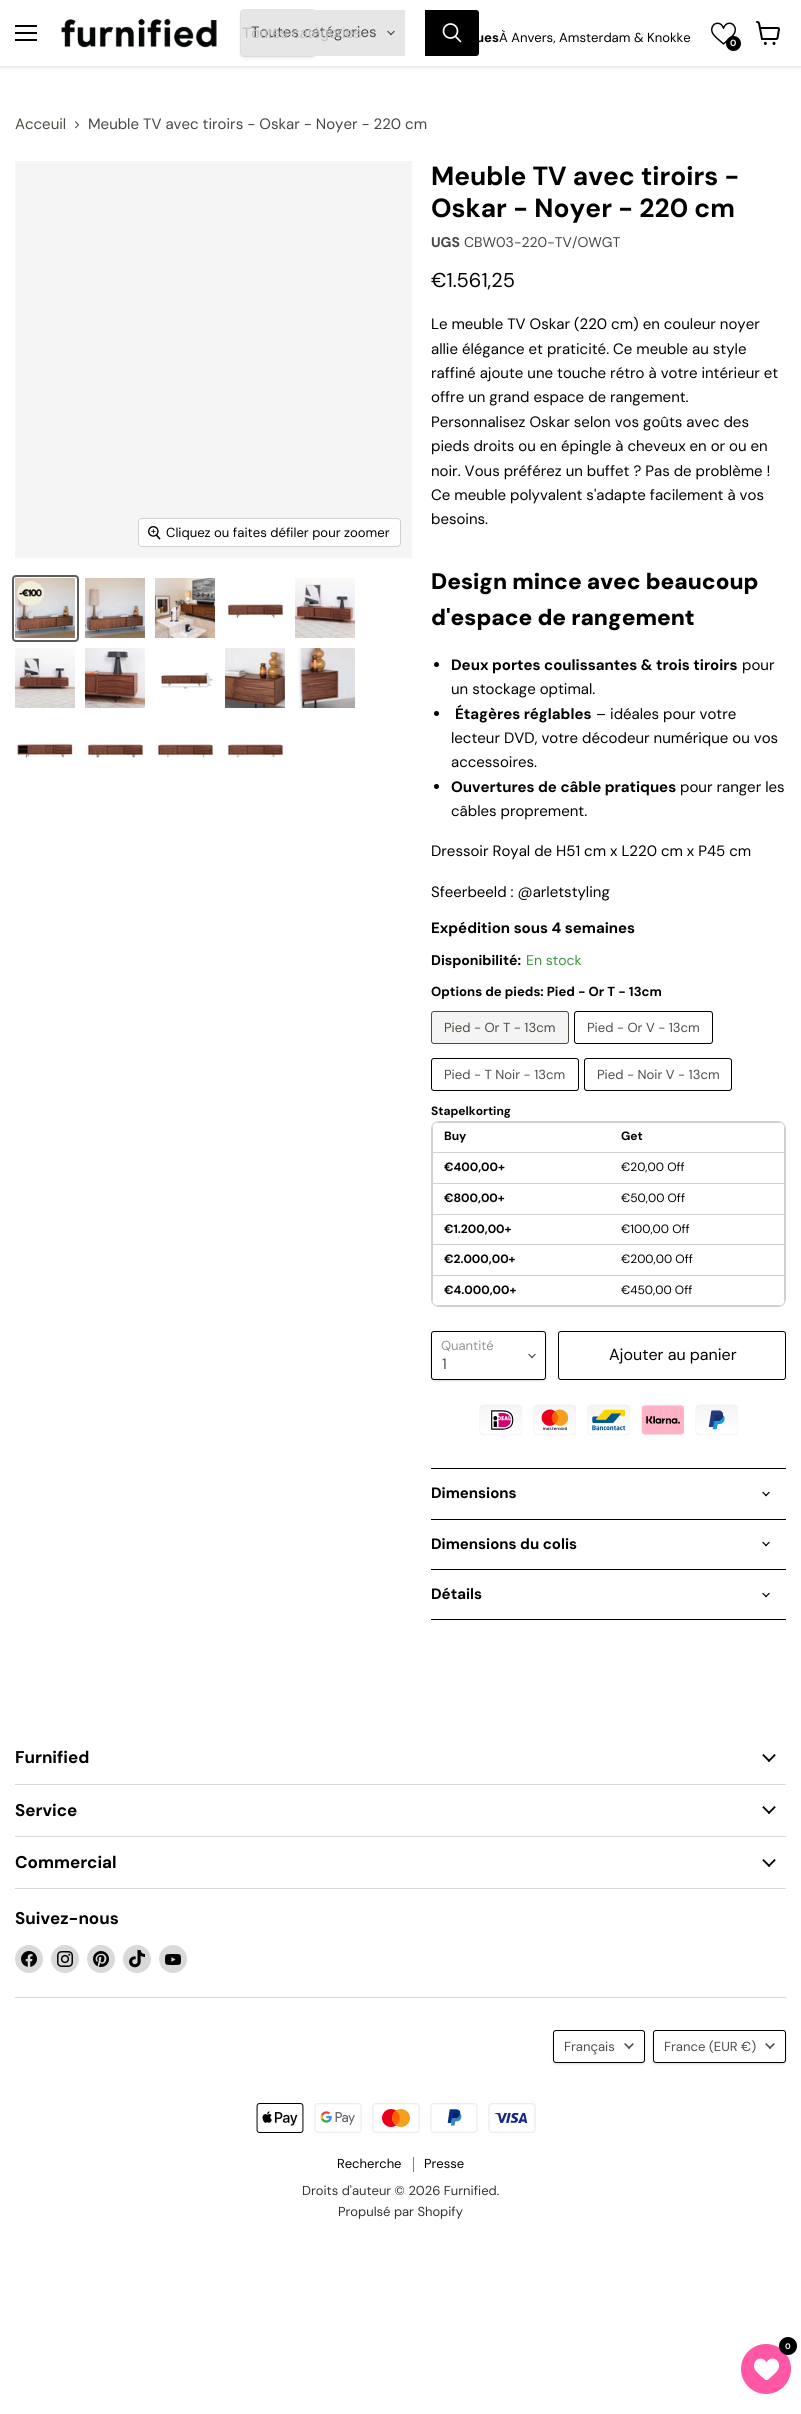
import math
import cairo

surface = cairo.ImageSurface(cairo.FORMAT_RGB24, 801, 2414)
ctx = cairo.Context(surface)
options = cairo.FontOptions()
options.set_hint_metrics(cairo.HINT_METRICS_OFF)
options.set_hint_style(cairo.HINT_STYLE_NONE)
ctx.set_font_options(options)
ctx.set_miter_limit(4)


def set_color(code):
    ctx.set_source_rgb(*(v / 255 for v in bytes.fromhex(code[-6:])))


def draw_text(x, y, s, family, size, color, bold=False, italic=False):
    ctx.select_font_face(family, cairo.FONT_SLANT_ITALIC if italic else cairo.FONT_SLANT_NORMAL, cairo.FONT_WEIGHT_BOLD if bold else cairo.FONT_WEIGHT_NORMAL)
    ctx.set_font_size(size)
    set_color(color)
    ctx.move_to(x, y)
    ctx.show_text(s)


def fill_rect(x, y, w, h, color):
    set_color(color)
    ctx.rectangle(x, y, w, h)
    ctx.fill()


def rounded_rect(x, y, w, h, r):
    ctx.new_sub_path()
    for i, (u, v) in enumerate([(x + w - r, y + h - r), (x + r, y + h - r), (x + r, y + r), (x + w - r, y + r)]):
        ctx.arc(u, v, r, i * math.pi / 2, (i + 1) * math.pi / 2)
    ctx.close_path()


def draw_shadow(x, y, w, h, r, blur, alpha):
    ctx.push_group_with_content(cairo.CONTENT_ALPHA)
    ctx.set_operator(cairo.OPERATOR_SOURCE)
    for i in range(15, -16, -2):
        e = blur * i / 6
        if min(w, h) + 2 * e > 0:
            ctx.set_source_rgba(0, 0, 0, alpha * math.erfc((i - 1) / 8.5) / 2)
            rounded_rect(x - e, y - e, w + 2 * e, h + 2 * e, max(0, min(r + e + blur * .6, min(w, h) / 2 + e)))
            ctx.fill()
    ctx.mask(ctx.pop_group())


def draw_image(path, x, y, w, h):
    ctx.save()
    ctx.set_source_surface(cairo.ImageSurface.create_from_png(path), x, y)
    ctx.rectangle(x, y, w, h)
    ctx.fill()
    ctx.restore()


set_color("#ffffff")
ctx.paint()
ctx.save()
ctx.rectangle(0, 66, 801, 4)
ctx.clip()
set_color("#808080")
draw_shadow(0, 1, 801, 66, 0, 2, 0.25)
ctx.restore()
fill_rect(15, 25, 22, 2, "#000000")
fill_rect(15, 32, 22, 2, "#000000")
fill_rect(15, 39, 22, 2, "#000000")
draw_image("assets/img1.png", 61, 18, 156, 30)
set_color("#808080")
draw_shadow(240, 11, 76, 48, 4, 1.5, 0.11)
rounded_rect(240.5, 9.5, 75, 47, 3.5)
ctx.set_source_rgba(0.502, 0.502, 0.502, 0.2)
ctx.set_line_width(1)
ctx.stroke()
set_color("#e6e6e6")
ctx.new_path()
ctx.move_to(244, 10)
ctx.line_to(405, 10)
ctx.line_to(405, 56)
ctx.line_to(244, 56)
ctx.curve_to(242.5, 56, 241, 54.5, 241, 53)
ctx.line_to(241, 13)
ctx.curve_to(241, 11.5, 242.5, 10, 244, 10)
ctx.close_path()
ctx.fill()
draw_text(251, 37, "Toutes catégories", "DM Sans", 15, "#4d4d4d")
draw_text(242, 38, "Toutes catégories", "Liberation Sans", 15, "#bebebe")
draw_image("assets/img2.png", 387, 30, 8, 6)
set_color("#000000")
ctx.new_path()
ctx.move_to(425.5, 10.5)
ctx.line_to(476, 10.5)
ctx.curve_to(477.5, 10.5, 478.5, 11.5, 478.5, 13)
ctx.line_to(478.5, 53)
ctx.curve_to(478.5, 54.5, 477.5, 55.5, 476, 55.5)
ctx.line_to(425.5, 55.5)
ctx.close_path()
ctx.fill_preserve()
ctx.stroke()
ctx.new_path()
ctx.move_to(460.5, 41.5)
ctx.line_to(455.5, 36.5)
set_color("#ffffff")
ctx.set_line_width(1.7)
ctx.set_line_cap(cairo.LINE_CAP_ROUND)
ctx.stroke()
ctx.arc(450.5, 31, 7, 0, 2 * math.pi)
ctx.set_line_cap(cairo.LINE_CAP_BUTT)
ctx.stroke()
draw_text(476, 42, "ues", "DM Sans", 13.1, "#000000", bold=True)
draw_text(499, 42, "À Anvers, Amsterdam & Knokke", "DM Sans", 13.1, "#000000")
draw_image("assets/img3.png", 711, 22, 25, 23)
ctx.arc(733.5, 43.5, 7.5, 0, 2 * math.pi)
ctx.fill()
draw_text(730, 46, "0", "DM Sans", 9, "#ffffff", bold=True)
draw_image("assets/img4.png", 756, 21, 24, 24)
draw_text(15, 129, "Acceuil", "DM Sans", 15, "#494d41")
draw_image("assets/img5.png", 75, 121, 5, 8)
draw_text(88, 129, "Meuble TV avec tiroirs - Oskar - Noyer - 220 cm", "DM Sans", 15, "#464646")
fill_rect(15, 161, 397, 397, "#f5f5f5")
rounded_rect(138.5, 518.5, 262, 28, 3.5)
set_color("#d0d0d0")
ctx.set_line_width(1)
ctx.stroke()
ctx.set_source_rgba(1, 1, 1, 0.9)
rounded_rect(139, 519, 261, 27, 3)
ctx.fill()
draw_image("assets/img6.png", 148, 526, 13, 14)
draw_text(166, 537, "Cliquez ou faites défiler pour zoomer", "DM Sans", 13.1, "#000000")
rounded_rect(13, 576, 65, 65, 3)
set_color("#5c5c5c")
ctx.set_line_width(2)
ctx.stroke()
draw_image("assets/img7.png", 15, 578, 60, 60)
draw_image("assets/img8.png", 85, 578, 60, 60)
draw_image("assets/img9.png", 155, 578, 60, 60)
draw_image("assets/img10.png", 225, 604, 59, 15)
draw_image("assets/img11.png", 295, 578, 60, 60)
draw_image("assets/img12.png", 15, 648, 60, 60)
draw_image("assets/img13.png", 85, 648, 60, 60)
draw_image("assets/img14.png", 161, 672, 52, 17)
draw_image("assets/img15.png", 225, 648, 60, 60)
draw_image("assets/img16.png", 298, 648, 57, 60)
draw_image("assets/img17.png", 15, 743, 58, 15)
draw_image("assets/img18.png", 85, 744, 59, 14)
draw_image("assets/img19.png", 155, 744, 59, 14)
draw_image("assets/img20.png", 225, 744, 59, 15)
draw_text(431, 185, "Meuble TV avec tiroirs -", "DM Sans", 26.25, "#000000", bold=True)
draw_text(431, 217, "Oskar - Noyer - 220 cm", "DM Sans", 26.25, "#000000", bold=True)
draw_text(431, 247, "UGS", "DM Sans", 14, "#464646", bold=True)
draw_text(464, 247, "CBW03-220-TV/OWGT", "DM Sans", 14, "#464646")
draw_text(431, 287, "€1.561,25", "DM Sans", 20, "#000000")
draw_text(431, 329, "Le meuble TV Oskar (220 cm) en couleur noyer", "DM Sans", 15, "#000000")
draw_text(431, 354, "allie élégance et praticité. Ce meuble au style", "DM Sans", 15, "#000000")
draw_text(431, 378, "raffiné ajoute une touche rétro à votre intérieur et", "DM Sans", 15, "#000000")
draw_text(431, 402, "offre un grand espace de rangement.", "DM Sans", 15, "#000000")
draw_text(431, 427, "Personnalisez Oskar selon vos goûts avec des", "DM Sans", 15, "#000000")
draw_text(431, 451, "pieds droits ou en épingle à cheveux en or ou en", "DM Sans", 15, "#000000")
draw_text(431, 476, "noir. Vous préférez un buffet ? Pas de problème !", "DM Sans", 15, "#000000")
draw_text(431, 500, "Ce meuble polyvalent s'adapte facilement à vos", "DM Sans", 15, "#000000")
draw_text(431, 524, "besoins.", "DM Sans", 15, "#000000")
draw_text(431, 589, "Design mince avec beaucoup", "DM Sans Black", 22.5, "#000000")
draw_text(431, 625, "d'espace de rangement", "DM Sans Black", 22.5, "#000000")
ctx.new_path()
ctx.arc(436.5, 664.5, 2.5, 0, 2 * math.pi)
ctx.fill()
draw_text(451, 670, "Deux portes coulissantes & trois tiroirs", "DM Sans", 15, "#000000", bold=True)
draw_text(742, 670, "pour", "DM Sans", 15, "#000000")
draw_text(451, 694, "un stockage optimal.", "DM Sans", 15, "#000000")
ctx.new_path()
ctx.arc(436.5, 713.5, 2.5, 0, 2 * math.pi)
ctx.fill()
draw_text(455, 719, "Étagères réglables", "DM Sans", 15, "#000000", bold=True)
draw_text(596, 719, "– idéales pour votre", "DM Sans", 15, "#000000")
draw_text(451, 743, "lecteur DVD, votre décodeur numérique ou vos", "DM Sans", 15, "#000000")
draw_text(451, 767, "accessoires.", "DM Sans", 15, "#000000")
ctx.new_path()
ctx.arc(436.5, 786.5, 2.5, 0, 2 * math.pi)
ctx.fill()
draw_text(451, 792, "Ouvertures de câble pratiques", "DM Sans", 15, "#000000", bold=True)
draw_text(680, 792, "pour ranger les", "DM Sans", 15, "#000000")
draw_text(451, 816, "câbles proprement.", "DM Sans", 15, "#000000")
draw_text(431, 856, "Dressoir Royal de H51 cm x L220 cm x P45 cm", "DM Sans", 15, "#000000")
draw_text(431, 897, "Sfeerbeeld : @arletstyling", "DM Sans", 15, "#000000")
draw_text(431, 933, "Expédition sous 4 semaines", "DM Sans", 15, "#000000", bold=True)
draw_text(431, 965, "Disponibilité:", "DM Sans", 14, "#000000", bold=True)
draw_text(526, 965, "En stock", "DM Sans", 14, "#3c9342")
draw_text(431, 996, "Options de pieds: Pied - Or T - 13cm", "DM Sans", 13.1, "#000000", bold=True)
set_color("#f4f4f4")
rounded_rect(431.5, 1011.5, 137, 32, 2.5)
ctx.fill_preserve()
set_color("#494d41")
ctx.set_line_width(1)
ctx.stroke()
draw_text(444, 1032, "Pied - Or T - 13cm", "DM Sans", 13.1, "#494d41")
rounded_rect(574.5, 1011.5, 138, 32, 2.5)
set_color("#000000")
ctx.stroke()
draw_text(587, 1032, "Pied - Or V - 13cm", "DM Sans", 13.1, "#4d4d4d")
rounded_rect(431.5, 1058.5, 147, 32, 2.5)
set_color("#000000")
ctx.stroke()
draw_text(444, 1079, "Pied - T Noir - 13cm", "DM Sans", 13.1, "#4d4d4d")
rounded_rect(584.5, 1058.5, 147, 32, 2.5)
set_color("#000000")
ctx.stroke()
draw_text(597, 1079, "Pied - Noir V - 13cm", "DM Sans", 13.1, "#4d4d4d")
draw_text(431, 1115, "Stapelkorting", "DM Sans", 12, "#000000", bold=True)
rounded_rect(431.5, 1121.5, 354, 185, 7.5)
set_color("#d0d0d0")
ctx.stroke()
ctx.save()
rounded_rect(432, 1122, 353, 184, 7)
ctx.clip()
fill_rect(432, 1122, 353, 1, "#d0d0d0")
ctx.restore()
fill_rect(432, 1152, 353, 1, "#d0d0d0")
fill_rect(432, 1183, 353, 1, "#d0d0d0")
fill_rect(432, 1214, 353, 1, "#d0d0d0")
fill_rect(432, 1244, 353, 1, "#d0d0d0")
fill_rect(432, 1275, 353, 1, "#d0d0d0")
ctx.save()
rounded_rect(432, 1122, 353, 184, 7)
ctx.clip()
fill_rect(784, 1275, 1, 31, "#d0d0d0")
ctx.restore()
fill_rect(784, 1244, 1, 32, "#d0d0d0")
fill_rect(784, 1214, 1, 31, "#d0d0d0")
fill_rect(784, 1183, 1, 32, "#d0d0d0")
fill_rect(784, 1152, 1, 32, "#d0d0d0")
ctx.save()
rounded_rect(432, 1122, 353, 184, 7)
ctx.clip()
fill_rect(784, 1122, 1, 31, "#d0d0d0")
fill_rect(432, 1305, 353, 1, "#d0d0d0")
fill_rect(432, 1275, 1, 31, "#d0d0d0")
ctx.restore()
fill_rect(432, 1244, 1, 32, "#d0d0d0")
fill_rect(432, 1214, 1, 31, "#d0d0d0")
fill_rect(432, 1183, 1, 32, "#d0d0d0")
fill_rect(432, 1152, 1, 32, "#d0d0d0")
ctx.save()
rounded_rect(432, 1122, 353, 184, 7)
ctx.clip()
fill_rect(432, 1122, 1, 31, "#d0d0d0")
ctx.restore()
draw_text(444, 1140, "Buy", "DM Sans", 12, "#000000", bold=True)
draw_text(621, 1140, "Get", "DM Sans", 12, "#000000", bold=True)
draw_text(444, 1171, "€400,00+", "DM Sans", 12, "#000000", bold=True)
draw_text(621, 1171, "€20,00 Off", "DM Sans", 12, "#000000")
draw_text(444, 1202, "€800,00+", "DM Sans", 12, "#000000", bold=True)
draw_text(621, 1202, "€50,00 Off", "DM Sans", 12, "#000000")
draw_text(444, 1233, "€1.200,00+", "DM Sans", 12, "#000000", bold=True)
draw_text(621, 1233, "€100,00 Off", "DM Sans", 12, "#000000")
draw_text(444, 1263, "€2.000,00+", "DM Sans", 12, "#000000", bold=True)
draw_text(621, 1263, "€200,00 Off", "DM Sans", 12, "#000000")
draw_text(444, 1294, "€4.000,00+", "DM Sans", 12, "#000000", bold=True)
draw_text(621, 1294, "€450,00 Off", "DM Sans", 12, "#000000")
set_color("#000000")
draw_shadow(431, 1332, 115, 49, 3, 1, 0.15)
set_color("#ffffff")
rounded_rect(431.5, 1331.5, 114, 48, 2.5)
ctx.fill_preserve()
set_color("#000000")
ctx.stroke()
draw_text(441, 1350, "Quantité", "DM Sans", 13, "#949494")
draw_image("assets/img21.png", 528, 1353, 8, 6)
draw_text(442, 1369, "1", "DM Sans", 15, "#4d4d4d")
rounded_rect(558.5, 1331.5, 227, 48, 2.5)
set_color("#000000")
ctx.stroke()
draw_text(609, 1360, "Ajouter au panier", "DM Sans", 16, "#000000")
draw_image("assets/img22.png", 479, 1404, 259, 32)
fill_rect(431, 1468, 355, 1, "#000000")
fill_rect(431, 1519, 355, 1, "#000000")
draw_text(431, 1498, "Dimensions", "DM Sans", 15, "#000000", bold=True)
draw_image("assets/img23.png", 762, 1491, 8, 6)
fill_rect(431, 1569, 355, 1, "#000000")
draw_text(431, 1549, "Dimensions du colis", "DM Sans", 15, "#000000", bold=True)
draw_image("assets/img23.png", 762, 1541, 8, 6)
fill_rect(431, 1619, 355, 1, "#000000")
draw_text(431, 1599, "Détails", "DM Sans", 15, "#000000", bold=True)
draw_image("assets/img23.png", 762, 1592, 8, 6)
fill_rect(15, 1784, 771, 1, "#d9d9d9")
draw_text(15, 1763, "Furnified", "DM Sans", 17, "#000000", bold=True)
draw_image("assets/img24.png", 762, 1754, 14, 8)
fill_rect(15, 1836, 771, 1, "#d9d9d9")
draw_text(15, 1816, "Service", "DM Sans", 17, "#000000", bold=True)
draw_image("assets/img24.png", 762, 1806, 14, 8)
fill_rect(15, 1888, 771, 1, "#d9d9d9")
draw_text(15, 1868, "Commercial", "DM Sans", 17, "#000000", bold=True)
draw_image("assets/img24.png", 762, 1859, 14, 8)
fill_rect(15, 1997, 771, 1, "#d9d9d9")
draw_text(15, 1924, "Suivez-nous", "DM Sans", 17, "#000000", bold=True)
set_color("#d9d9d9")
ctx.new_path()
ctx.arc(29, 1959, 14, 0, 2 * math.pi)
ctx.fill()
draw_image("assets/img25.png", 21, 1951, 16, 16)
ctx.arc(65, 1959, 14, 0, 2 * math.pi)
ctx.fill()
draw_image("assets/img26.png", 57, 1951, 16, 16)
ctx.arc(101, 1959, 14, 0, 2 * math.pi)
ctx.fill()
draw_image("assets/img27.png", 93, 1951, 16, 16)
ctx.arc(137, 1959, 14, 0, 2 * math.pi)
ctx.fill()
draw_image("assets/img28.png", 129, 1950, 16, 18)
ctx.arc(173, 1959, 14, 0, 2 * math.pi)
ctx.fill()
draw_image("assets/img29.png", 165, 1954, 16, 11)
set_color("#000000")
draw_shadow(553, 2031, 92, 33, 3, 1, 0.15)
set_color("#ffffff")
rounded_rect(553.5, 2030.5, 91, 32, 2.5)
ctx.fill_preserve()
set_color("#000000")
ctx.stroke()
draw_text(564, 2051, "Français", "DM Sans", 13.1, "#4d4d4d")
draw_image("assets/img30.png", 624, 2043, 10, 6)
set_color("#000000")
draw_shadow(653, 2031, 133, 33, 3, 1, 0.15)
set_color("#ffffff")
rounded_rect(653.5, 2030.5, 132, 32, 2.5)
ctx.fill_preserve()
set_color("#000000")
ctx.stroke()
draw_text(664, 2051, "France (EUR €)", "DM Sans", 13.1, "#4d4d4d")
draw_image("assets/img30.png", 765, 2043, 10, 6)
draw_image("assets/img31.png", 256, 2103, 48, 30)
draw_image("assets/img32.png", 314, 2103, 48, 30)
draw_image("assets/img33.png", 372, 2103, 48, 30)
draw_image("assets/img34.png", 430, 2103, 48, 30)
draw_image("assets/img35.png", 488, 2103, 48, 30)
fill_rect(413, 2157, 1, 15, "#808080")
draw_text(337, 2168, "Recherche", "DM Sans", 13, "#000000")
draw_text(424, 2168, "Presse", "DM Sans", 13, "#000000")
draw_text(302, 2195, "Droits d'auteur © 2026 Furnified.", "DM Sans", 13, "#333333")
draw_text(338, 2216, "Propulsé par Shopify", "DM Sans", 13, "#333333")
set_color("#ff56a5")
ctx.new_path()
ctx.arc(766, 2369, 25, 0, 2 * math.pi)
ctx.fill()
set_color("#000000")
ctx.arc(788, 2346, 9, 0, 2 * math.pi)
ctx.fill()
draw_text(785, 2349, "0", "DM Sans", 8, "#ffffff", bold=True)
draw_image("assets/img36.png", 754, 2358, 25, 22)
surface.write_to_png("output.png")
